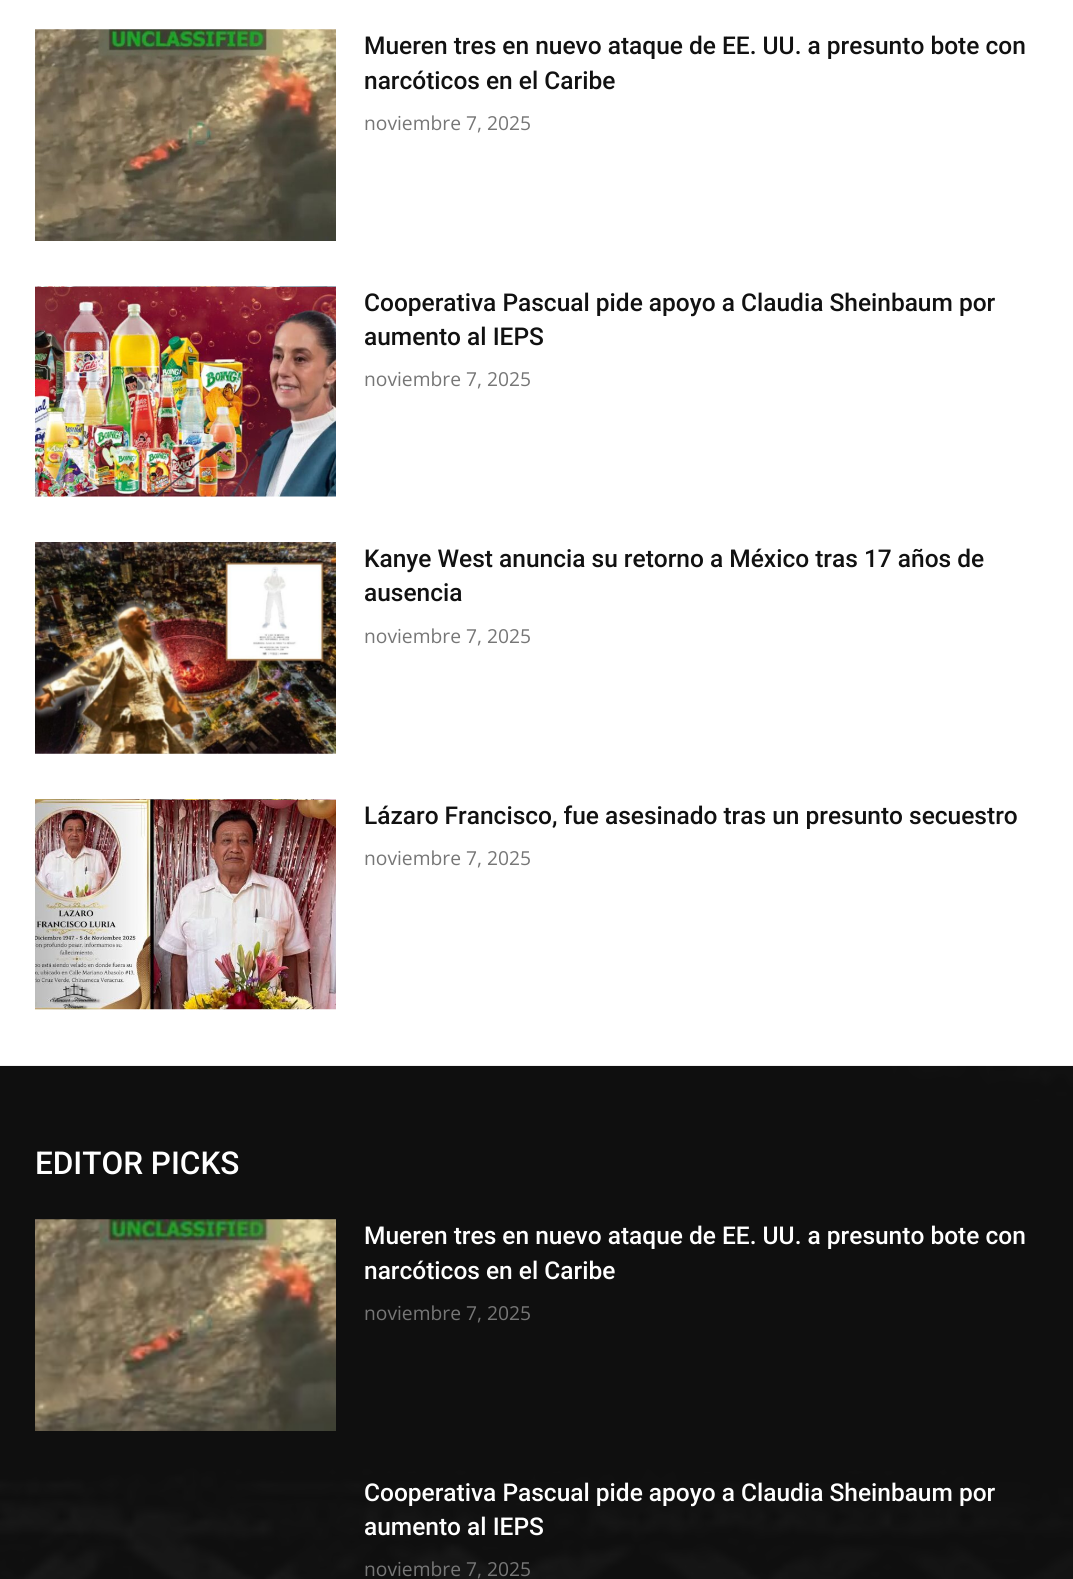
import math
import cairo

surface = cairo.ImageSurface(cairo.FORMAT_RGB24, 1073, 1579)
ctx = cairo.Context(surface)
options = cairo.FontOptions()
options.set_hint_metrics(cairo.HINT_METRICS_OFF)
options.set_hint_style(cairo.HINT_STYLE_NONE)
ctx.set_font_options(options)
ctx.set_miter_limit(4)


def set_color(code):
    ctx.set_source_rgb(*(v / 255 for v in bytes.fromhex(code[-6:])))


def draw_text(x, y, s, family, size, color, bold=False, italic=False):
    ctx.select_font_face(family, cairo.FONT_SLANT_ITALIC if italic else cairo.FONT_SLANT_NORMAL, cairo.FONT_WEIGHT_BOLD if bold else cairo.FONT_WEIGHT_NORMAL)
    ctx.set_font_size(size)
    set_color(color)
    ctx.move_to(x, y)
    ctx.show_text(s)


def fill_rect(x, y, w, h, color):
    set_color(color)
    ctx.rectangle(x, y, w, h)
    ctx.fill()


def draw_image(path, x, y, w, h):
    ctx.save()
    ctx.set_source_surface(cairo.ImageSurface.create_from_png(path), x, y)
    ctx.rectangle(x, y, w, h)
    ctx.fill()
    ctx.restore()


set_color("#ffffff")
ctx.paint()
draw_image("assets/img1.png", 35, 29, 301, 212)
draw_text(364, 54, "Mueren tres en nuevo ataque de EE. UU. a presunto bote con", "Roboto Medium", 24.5, "#111111")
draw_text(364, 89, "narcóticos en el Caribe", "Roboto Medium", 24.5, "#111111")
draw_text(364, 130, "noviembre 7, 2025", "Open Sans", 19.25, "#767676")
draw_image("assets/img2.png", 35, 286, 301, 211)
draw_text(364, 311, "Cooperativa Pascual pide apoyo a Claudia Sheinbaum por", "Roboto Medium", 24.5, "#111111")
draw_text(364, 345, "aumento al IEPS", "Roboto Medium", 24.5, "#111111")
draw_text(364, 386, "noviembre 7, 2025", "Open Sans", 19.25, "#767676")
draw_image("assets/img3.png", 35, 542, 301, 212)
draw_text(364, 567, "Kanye West anuncia su retorno a México tras 17 años de", "Roboto Medium", 24.5, "#111111")
draw_text(364, 601, "ausencia", "Roboto Medium", 24.5, "#111111")
draw_text(364, 643, "noviembre 7, 2025", "Open Sans", 19.25, "#767676")
draw_image("assets/img4.png", 35, 799, 301, 211)
draw_text(364, 824, "Lázaro Francisco, fue asesinado tras un presunto secuestro", "Roboto Medium", 24.5, "#111111")
draw_text(364, 865, "noviembre 7, 2025", "Open Sans", 19.25, "#767676")
fill_rect(0, 1066, 1073, 513, "#111111")
draw_image("assets/img5.png", 0, 1065, 1073, 514)
draw_text(35, 1174, "EDITOR PICKS", "Roboto Medium", 31.5, "#ffffff")
draw_image("assets/img6.png", 35, 1219, 301, 212)
draw_text(364, 1244, "Mueren tres en nuevo ataque de EE. UU. a presunto bote con", "Roboto Medium", 24.5, "#ffffff")
draw_text(364, 1279, "narcóticos en el Caribe", "Roboto Medium", 24.5, "#ffffff")
draw_text(364, 1320, "noviembre 7, 2025", "Open Sans", 19.25, "#767676")
draw_text(364, 1501, "Cooperativa Pascual pide apoyo a Claudia Sheinbaum por", "Roboto Medium", 24.5, "#ffffff")
draw_text(364, 1535, "aumento al IEPS", "Roboto Medium", 24.5, "#ffffff")
draw_text(364, 1576, "noviembre 7, 2025", "Open Sans", 19.25, "#767676")
surface.write_to_png("output.png")
